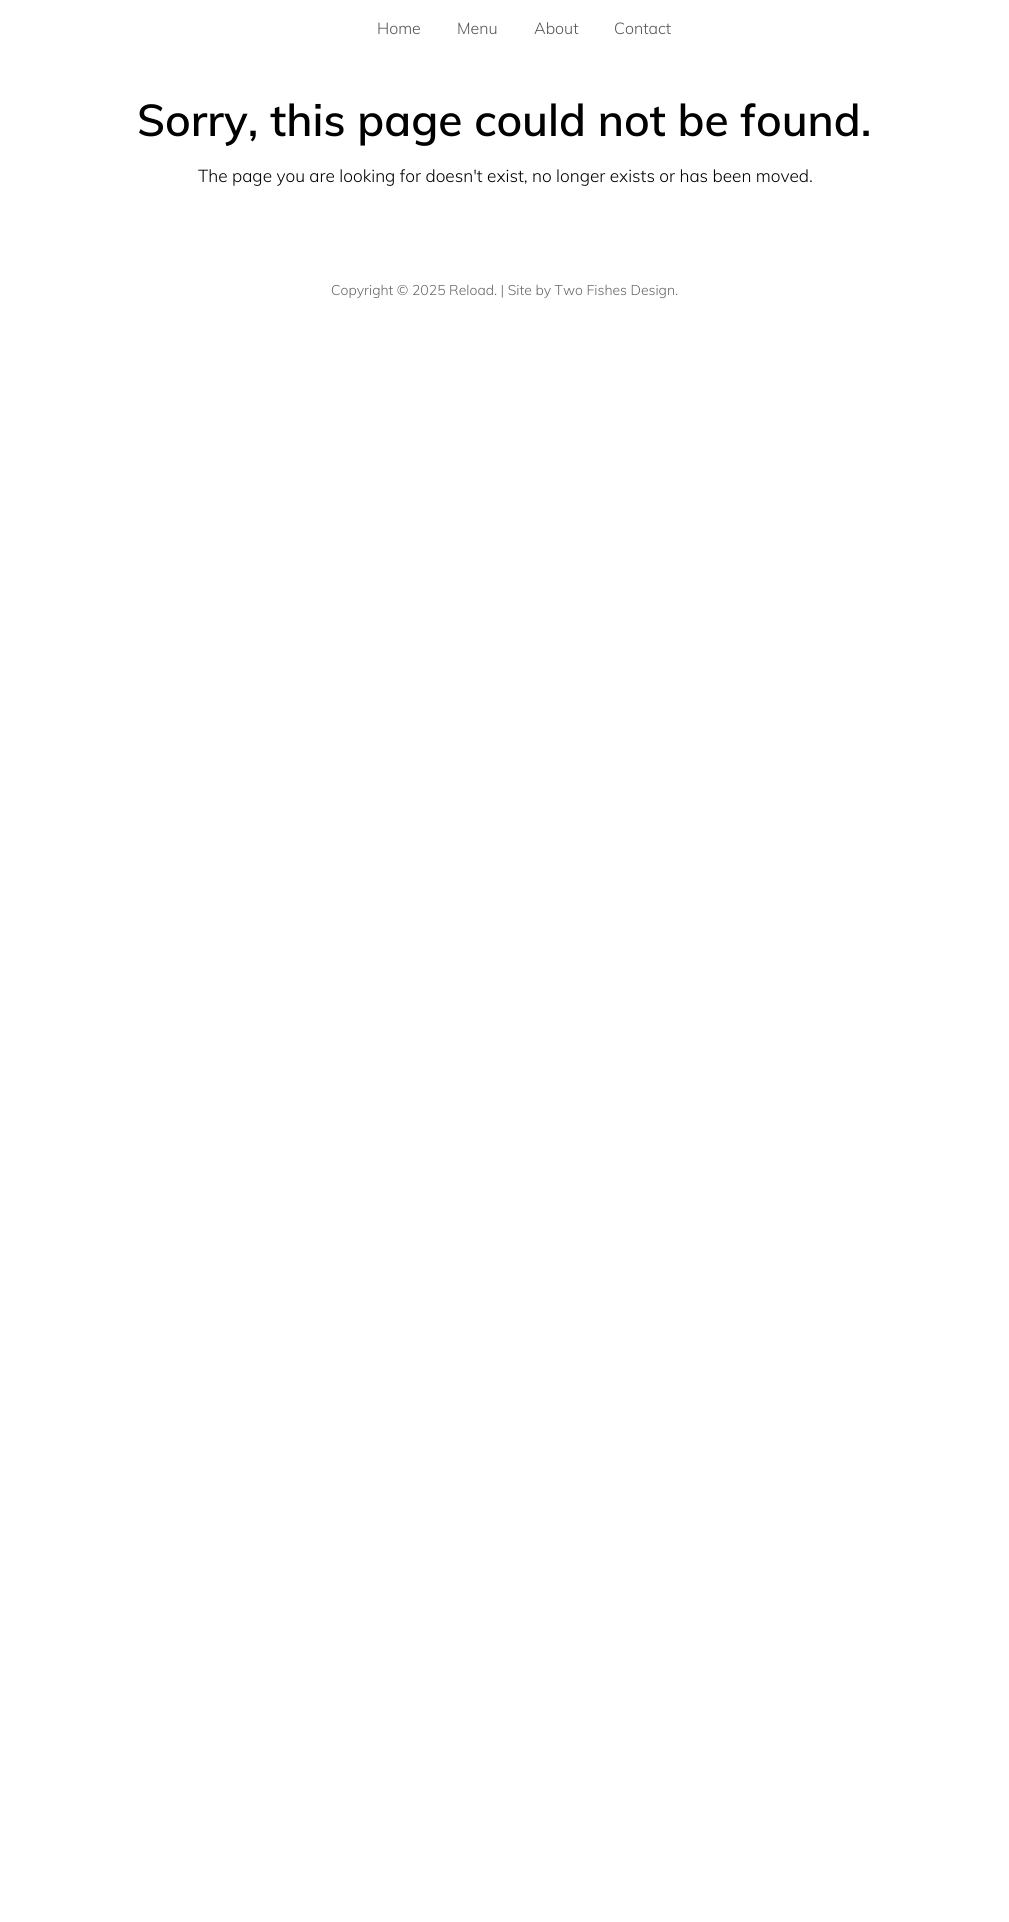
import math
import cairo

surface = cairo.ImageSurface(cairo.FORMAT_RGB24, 1009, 1922)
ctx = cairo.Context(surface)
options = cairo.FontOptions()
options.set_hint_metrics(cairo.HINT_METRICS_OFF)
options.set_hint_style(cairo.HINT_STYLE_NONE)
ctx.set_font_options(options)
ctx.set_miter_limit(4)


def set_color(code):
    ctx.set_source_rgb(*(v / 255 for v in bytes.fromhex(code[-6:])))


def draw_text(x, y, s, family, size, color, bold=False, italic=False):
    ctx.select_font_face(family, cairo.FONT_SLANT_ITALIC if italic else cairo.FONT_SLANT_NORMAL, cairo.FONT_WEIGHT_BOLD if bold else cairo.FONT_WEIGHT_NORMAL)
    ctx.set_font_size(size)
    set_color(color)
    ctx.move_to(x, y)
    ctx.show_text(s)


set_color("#ffffff")
ctx.paint()
draw_text(377, 34, "Home", "Muli Light", 16, "#555555")
draw_text(457, 34, "Menu", "Muli Light", 16, "#555555")
draw_text(534, 34, "About", "Muli Light", 16, "#555555")
draw_text(614, 34, "Contact", "Muli Light", 16, "#555555")
draw_text(137, 136, "Sorry, this page could not be found.", "Muli SemiBold", 44.25, "#000000")
draw_text(198, 182, "The page you are looking for doesn't exist, no longer exists or has been moved.", "Muli Light", 17.25, "#000000")
draw_text(331, 295, "Copyright © 2025 Reload. | Site by Two Fishes Design.", "Muli Light", 14, "#666666")
surface.write_to_png("output.png")
